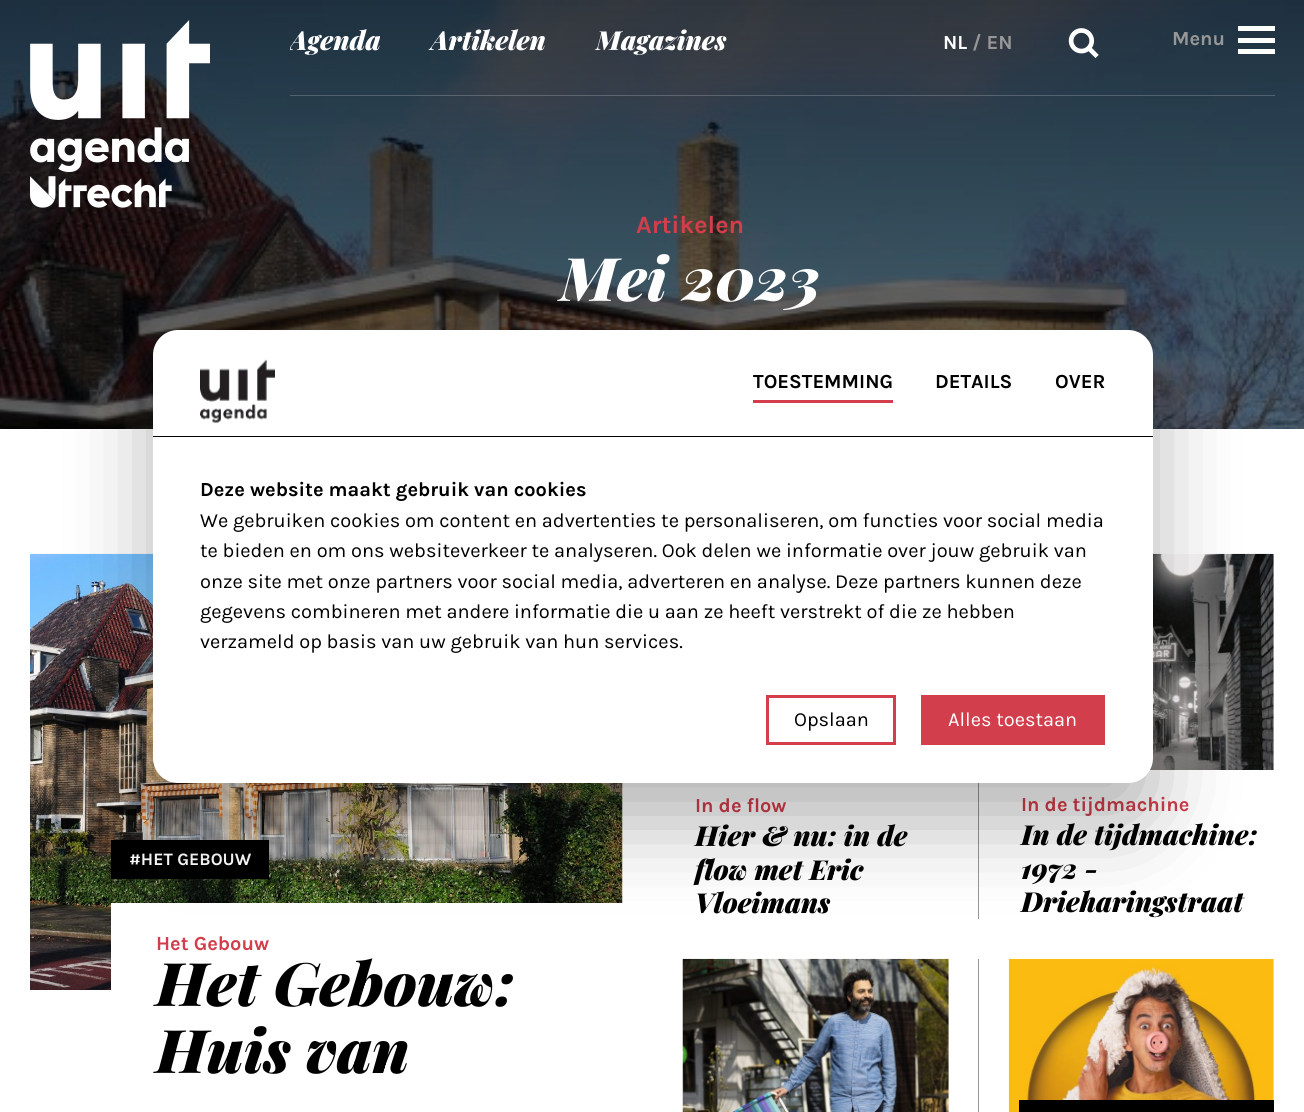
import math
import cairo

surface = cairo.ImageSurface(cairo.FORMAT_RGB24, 1304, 1112)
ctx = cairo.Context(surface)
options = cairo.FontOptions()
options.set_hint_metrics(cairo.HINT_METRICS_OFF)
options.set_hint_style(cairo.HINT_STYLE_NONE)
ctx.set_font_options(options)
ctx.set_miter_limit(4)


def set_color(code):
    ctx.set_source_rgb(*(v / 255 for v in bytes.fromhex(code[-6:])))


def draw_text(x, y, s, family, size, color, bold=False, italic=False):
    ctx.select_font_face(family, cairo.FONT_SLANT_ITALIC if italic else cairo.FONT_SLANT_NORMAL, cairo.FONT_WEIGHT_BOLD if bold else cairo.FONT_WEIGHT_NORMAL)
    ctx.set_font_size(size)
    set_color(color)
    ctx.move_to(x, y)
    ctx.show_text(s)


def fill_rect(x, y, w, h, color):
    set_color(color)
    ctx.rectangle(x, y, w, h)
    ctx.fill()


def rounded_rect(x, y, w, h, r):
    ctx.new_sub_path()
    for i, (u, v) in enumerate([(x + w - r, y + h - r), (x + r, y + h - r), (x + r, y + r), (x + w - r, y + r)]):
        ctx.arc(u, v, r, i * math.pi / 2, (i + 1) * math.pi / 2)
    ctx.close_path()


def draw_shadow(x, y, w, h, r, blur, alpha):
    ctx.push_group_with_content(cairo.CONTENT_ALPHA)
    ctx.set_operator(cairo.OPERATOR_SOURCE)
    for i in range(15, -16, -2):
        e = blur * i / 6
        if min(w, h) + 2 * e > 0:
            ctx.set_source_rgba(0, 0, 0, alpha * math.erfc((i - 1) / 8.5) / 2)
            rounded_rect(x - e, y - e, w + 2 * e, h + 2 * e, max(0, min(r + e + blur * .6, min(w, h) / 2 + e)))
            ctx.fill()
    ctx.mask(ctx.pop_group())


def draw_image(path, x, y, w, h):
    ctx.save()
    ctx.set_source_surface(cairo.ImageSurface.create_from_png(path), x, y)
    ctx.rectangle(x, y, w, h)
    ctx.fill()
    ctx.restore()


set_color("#ffffff")
ctx.paint()
draw_image("assets/img3.png", 0, 0, 1304, 429)
draw_image("assets/img1.png", 30, 20, 180, 188)
ctx.set_source_rgba(1, 1, 1, 0.2)
ctx.rectangle(290, 95, 985, 1)
ctx.fill()
ctx.save()
ctx.rectangle(290, 0, 436, 95)
ctx.clip()
draw_text(290, 50, "Agenda", "Playfair Display Black", 26.25, "#ffffff", italic=True)
ctx.restore()
draw_text(431, 50, "Artikelen", "Playfair Display Black", 26.25, "#ffffff", italic=True)
draw_text(596, 50, "Magazines", "Playfair Display Black", 26.25, "#ffffff", italic=True)
draw_text(943, 49, "NL", "Karla", 20, "#ffffff", bold=True)
draw_text(972, 49, "/ EN", "Karla", 20, "#979797", bold=True)
draw_image("assets/img2.png", 1068, 28, 31, 30)
draw_text(1172, 45, "Menu", "Karla", 20, "#979797", bold=True)
fill_rect(1238, 26, 37, 5, "#ffffff")
fill_rect(1238, 38, 37, 5, "#ffffff")
fill_rect(1238, 49, 37, 5, "#ffffff")
draw_text(636, 233, "Artikelen", "Karla", 25, "#d23e4b", bold=True)
draw_text(560, 301, "Mei 2023", "Playfair Display Black", 60, "#ffffff", italic=True)
draw_image("assets/img4.png", 30, 553, 593, 437)
fill_rect(111, 903, 512, 87, "#ffffff")
fill_rect(111, 840, 158, 39, "#000000")
draw_text(129, 865, "#HET GEBOUW", "Karla", 17.5, "#ffffff", bold=True)
draw_text(156, 950, "Het Gebouw", "Karla", 20, "#d23e4b", bold=True)
draw_text(156, 1006, "Het Gebouw:", "Playfair Display Black", 60, "#000000", italic=True)
draw_text(156, 1073, "Huis van", "Playfair Display Black", 60, "#000000", italic=True)
draw_text(695, 812, "In de flow", "Karla", 20, "#d23e4b", bold=True)
draw_text(695, 846, "Hier & nu: in de", "Playfair Display Black", 27.5, "#000000", italic=True)
draw_text(695, 880, "flow met Eric", "Playfair Display Black", 27.5, "#000000", italic=True)
draw_text(695, 913, "Vloeimans", "Playfair Display Black", 27.5, "#000000", italic=True)
fill_rect(978, 783, 1, 136, "#979797")
draw_image("assets/img5.png", 1150, 553, 124, 217)
draw_text(1021, 811, "In de tijdmachine", "Karla", 20, "#d23e4b", bold=True)
draw_text(1021, 845, "In de tijdmachine:", "Playfair Display Black", 27.5, "#000000", italic=True)
draw_text(1021, 879, "1972 -", "Playfair Display Black", 27.5, "#000000", italic=True)
draw_text(1021, 912, "Drieharingstraat", "Playfair Display Black", 27.5, "#000000", italic=True)
draw_image("assets/img6.png", 682, 958, 267, 154)
fill_rect(978, 959, 1, 153, "#979797")
draw_image("assets/img7.png", 1008, 958, 266, 154)
fill_rect(1019, 1100, 255, 12, "#000000")
set_color("#000000")
draw_shadow(153, 370, 1000, 453, 25, 42.5, 0.3)
set_color("#ffffff")
rounded_rect(153, 330, 1000, 453, 25)
ctx.fill()
fill_rect(153, 436, 1000, 1, "#000000")
draw_image("assets/img8.png", 200, 359, 75, 64)
fill_rect(753, 400, 140, 3, "#d23e4b")
draw_text(753, 388, "TOESTEMMING", "Karla", 20, "#000000", bold=True)
draw_text(935, 388, "DETAILS", "Karla", 20, "#000000", bold=True)
draw_text(1055, 388, "OVER", "Karla", 20, "#000000", bold=True)
draw_text(200, 496, "Deze website maakt gebruik van cookies", "Karla", 20, "#000000", bold=True)
draw_text(200, 527, "We gebruiken cookies om content en advertenties te personaliseren, om functies voor social media", "Karla", 20, "#000000")
draw_text(200, 557, "te bieden en om ons websiteverkeer te analyseren. Ook delen we informatie over jouw gebruik van", "Karla", 20, "#000000")
draw_text(200, 588, "onze site met onze partners voor social media, adverteren en analyse. Deze partners kunnen deze", "Karla", 20, "#000000")
draw_text(200, 618, "gegevens combineren met andere informatie die u aan ze heeft verstrekt of die ze hebben", "Karla", 20, "#000000")
draw_text(200, 648, "verzameld op basis van uw gebruik van hun services.", "Karla", 20, "#000000")
ctx.rectangle(767.5, 696.5, 127, 47)
set_color("#d23e4b")
ctx.set_line_width(3)
ctx.stroke()
draw_text(794, 726, "Opslaan", "Karla", 20, "#000000")
fill_rect(921, 695, 184, 50, "#d23e4b")
draw_text(948, 726, "Alles toestaan", "Karla", 20, "#ffffff")
surface.write_to_png("output.png")
